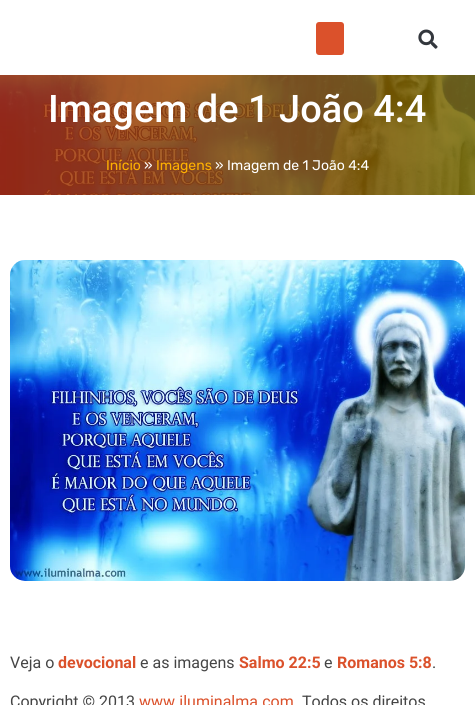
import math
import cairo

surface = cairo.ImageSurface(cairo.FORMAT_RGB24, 475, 705)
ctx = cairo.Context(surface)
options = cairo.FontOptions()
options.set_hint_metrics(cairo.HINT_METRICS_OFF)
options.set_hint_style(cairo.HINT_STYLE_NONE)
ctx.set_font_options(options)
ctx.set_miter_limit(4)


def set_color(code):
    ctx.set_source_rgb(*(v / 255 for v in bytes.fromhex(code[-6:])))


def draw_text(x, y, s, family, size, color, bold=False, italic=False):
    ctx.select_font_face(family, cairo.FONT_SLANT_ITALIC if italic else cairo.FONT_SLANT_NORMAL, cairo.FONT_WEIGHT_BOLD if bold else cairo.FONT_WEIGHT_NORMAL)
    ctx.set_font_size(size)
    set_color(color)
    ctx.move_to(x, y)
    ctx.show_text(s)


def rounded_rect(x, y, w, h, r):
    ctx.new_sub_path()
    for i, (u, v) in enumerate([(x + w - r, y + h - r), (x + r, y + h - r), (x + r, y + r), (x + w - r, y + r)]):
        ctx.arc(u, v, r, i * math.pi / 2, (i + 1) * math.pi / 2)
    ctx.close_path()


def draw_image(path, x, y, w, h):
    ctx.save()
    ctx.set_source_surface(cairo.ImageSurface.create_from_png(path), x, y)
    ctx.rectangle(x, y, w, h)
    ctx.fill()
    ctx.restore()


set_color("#ffffff")
ctx.paint()
set_color("#db512b")
rounded_rect(316, 22, 28, 33, 3)
ctx.fill()
draw_image("assets/img1.png", 418, 29, 20, 20)
draw_image("assets/img2.png", 0, 75, 475, 120)
draw_text(48, 122, "Imagem de 1 João 4:4", "Roboto Medium", 38, "#ffffff")
draw_text(106, 170, "Início", "Rubik", 14, "#ffb100")
draw_text(144, 170, "»", "Rubik", 14, "#ffffff")
draw_text(156, 170, "Imagens", "Rubik", 14, "#ffb100")
draw_text(215, 170, "» Imagem de 1 João 4:4", "Rubik", 14, "#ffffff")
draw_image("assets/img3.png", 10, 260, 455, 321)
draw_text(10, 668, "Veja o", "Roboto", 16, "#454545")
draw_text(58, 668, "devocional", "Roboto", 16, "#db512b", bold=True)
draw_text(140, 668, "e as imagens", "Roboto", 16, "#454545")
draw_text(239, 668, "Salmo 22:5", "Roboto", 16, "#db512b", bold=True)
draw_text(324, 668, "e", "Roboto", 16, "#454545")
draw_text(337, 668, "Romanos 5:8", "Roboto", 16, "#db512b", bold=True)
draw_text(432, 668, ".", "Roboto", 16, "#454545")
draw_text(10, 707, "Copyright © 2013", "Roboto", 16, "#454545")
draw_text(139, 707, "www.iluminalma.com", "Roboto", 16, "#db512b")
draw_text(302, 707, "Todos os direitos", "Roboto", 16, "#454545")
surface.write_to_png("output.png")
